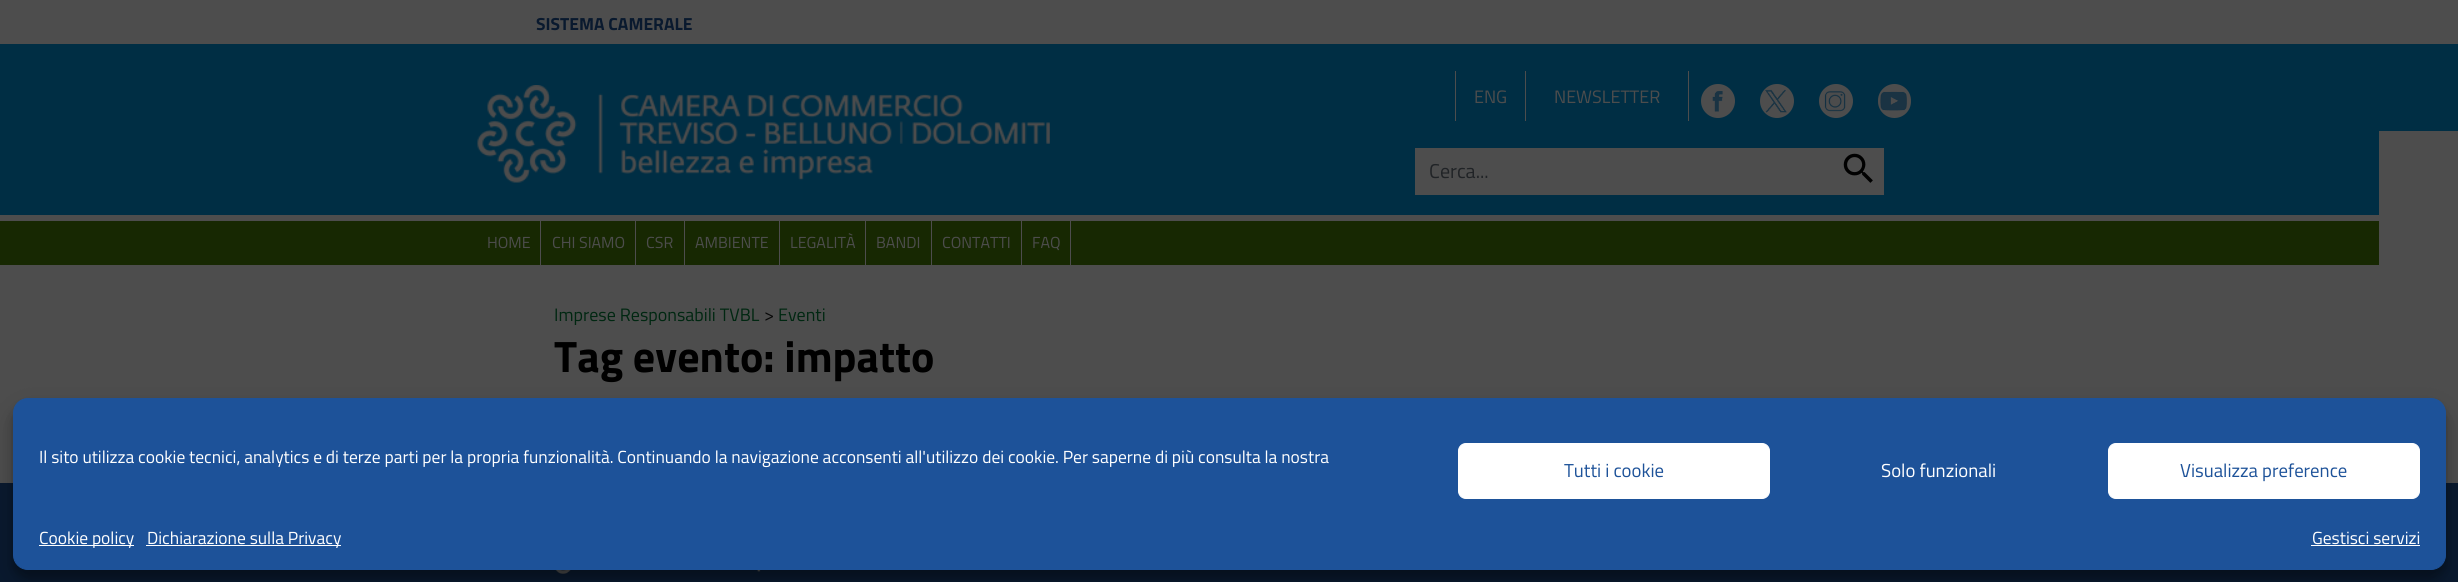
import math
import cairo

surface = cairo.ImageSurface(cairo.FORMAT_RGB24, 2458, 582)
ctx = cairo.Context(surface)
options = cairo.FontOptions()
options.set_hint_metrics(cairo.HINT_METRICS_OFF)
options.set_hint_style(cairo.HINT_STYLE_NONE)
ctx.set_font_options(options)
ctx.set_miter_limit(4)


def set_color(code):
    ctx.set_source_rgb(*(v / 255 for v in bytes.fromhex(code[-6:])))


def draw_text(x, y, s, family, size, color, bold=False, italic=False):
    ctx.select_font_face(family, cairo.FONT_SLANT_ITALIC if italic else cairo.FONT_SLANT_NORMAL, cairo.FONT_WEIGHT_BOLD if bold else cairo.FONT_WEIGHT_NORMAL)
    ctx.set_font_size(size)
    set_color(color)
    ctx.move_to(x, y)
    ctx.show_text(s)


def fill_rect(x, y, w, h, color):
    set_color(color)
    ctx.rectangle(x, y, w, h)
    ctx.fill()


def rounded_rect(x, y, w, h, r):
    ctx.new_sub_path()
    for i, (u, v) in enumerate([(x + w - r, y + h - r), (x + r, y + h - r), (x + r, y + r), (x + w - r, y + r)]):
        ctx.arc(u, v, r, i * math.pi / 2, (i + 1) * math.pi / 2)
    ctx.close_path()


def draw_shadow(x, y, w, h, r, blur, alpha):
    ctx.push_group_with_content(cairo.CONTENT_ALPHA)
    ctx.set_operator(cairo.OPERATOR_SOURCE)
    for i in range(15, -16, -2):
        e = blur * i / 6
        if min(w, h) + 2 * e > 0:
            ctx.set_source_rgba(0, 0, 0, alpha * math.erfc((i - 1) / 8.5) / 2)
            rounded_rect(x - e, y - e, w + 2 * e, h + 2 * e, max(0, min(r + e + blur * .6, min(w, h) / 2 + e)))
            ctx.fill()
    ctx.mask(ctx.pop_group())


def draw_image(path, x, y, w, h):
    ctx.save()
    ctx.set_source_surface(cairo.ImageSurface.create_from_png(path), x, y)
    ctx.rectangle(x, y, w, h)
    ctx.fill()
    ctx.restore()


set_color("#4d4d4d")
ctx.paint()
draw_text(536, 30, "SISTEMA CAMERALE", "Titillium Web", 17.5, "#09192e", bold=True)
fill_rect(0, 44, 2458, 87, "#002e44")
fill_rect(1455, 71, 1, 50, "#4d4d4d")
draw_text(1474, 103, "ENG", "Titillium Web", 18, "#4d4d4d")
fill_rect(1688, 71, 1, 50, "#4d4d4d")
fill_rect(1525, 71, 1, 50, "#4d4d4d")
draw_text(1554, 103, "NEWSLETTER", "Titillium Web", 18, "#4d4d4d")
ctx.new_path()
ctx.arc(1718, 101, 17, 0, 2 * math.pi)
ctx.fill()
draw_image("assets/img1.png", 1712, 91, 11, 21)
ctx.arc(1777, 101, 17, 0, 2 * math.pi)
ctx.fill()
draw_image("assets/img2.png", 1765, 89, 22, 24)
ctx.arc(1836, 101, 17, 0, 2 * math.pi)
ctx.fill()
draw_image("assets/img3.png", 1824, 91, 22, 21)
rounded_rect(1878, 84, 33, 34, 16.5)
ctx.fill()
draw_image("assets/img4.png", 1880, 91, 27, 20)
fill_rect(0, 131, 2379, 84, "#002e44")
draw_image("assets/img5.png", 477, 85, 573, 98)
fill_rect(1415, 148, 469, 47, "#4d4d4d")
draw_text(1429, 178, "Cerca...", "Titillium Web", 20, "#202326")
draw_image("assets/img6.png", 1843, 153, 30, 30)
fill_rect(0, 221, 2379, 44, "#172802")
fill_rect(540, 221, 1, 44, "#4d4d4d")
draw_text(487, 248, "HOME", "Titillium Web", 16, "#4d4d4d")
fill_rect(635, 221, 1, 44, "#4d4d4d")
draw_text(552, 248, "CHI SIAMO", "Titillium Web", 16, "#4d4d4d")
fill_rect(684, 221, 1, 44, "#4d4d4d")
draw_text(646, 248, "CSR", "Titillium Web", 16, "#4d4d4d")
fill_rect(779, 221, 1, 44, "#4d4d4d")
draw_text(695, 248, "AMBIENTE", "Titillium Web", 16, "#4d4d4d")
fill_rect(865, 221, 1, 44, "#4d4d4d")
draw_text(790, 248, "LEGALITÀ", "Titillium Web", 16, "#4d4d4d")
fill_rect(931, 221, 1, 44, "#4d4d4d")
draw_text(876, 248, "BANDI", "Titillium Web", 16, "#4d4d4d")
fill_rect(1021, 221, 1, 44, "#4d4d4d")
draw_text(942, 248, "CONTATTI", "Titillium Web", 16, "#4d4d4d")
fill_rect(1070, 221, 1, 44, "#4d4d4d")
draw_text(1032, 248, "FAQ", "Titillium Web", 16, "#4d4d4d")
draw_text(554, 321, "Imprese Responsabili TVBL", "Titillium Web", 18, "#002711")
draw_text(764, 321, ">", "Titillium Web", 18, "#080808")
draw_text(778, 321, "Eventi", "Titillium Web", 18, "#002711")
draw_text(554, 372, "Tag evento: impatto", "Titillium Web", 44, "#000000", bold=True)
fill_rect(0, 483, 2458, 99, "#09192e")
draw_image("assets/img7.png", 555, 570, 206, 4)
set_color("#000000")
draw_shadow(13, 405, 2433, 173, 15, 4, 0.23)
draw_shadow(13, 410, 2433, 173, 15, 12.5, 0.19)
set_color("#1d5299")
rounded_rect(13.5, 398.5, 2432, 171, 14.5)
ctx.fill_preserve()
ctx.set_line_width(1)
ctx.stroke()
draw_text(39, 463, "Il sito utilizza cookie tecnici, analytics e di terze parti per la propria funzionalità. Continuando la navigazione acconsenti all'utilizzo dei cookie. Per saperne di più consulta la nostra", "Titillium Web", 17.5, "#ffffff")
rounded_rect(1458.5, 443.5, 311, 55, 7.5)
ctx.fill_preserve()
ctx.stroke()
draw_text(1564, 477, "Tutti i cookie", "Titillium Web", 18.75, "#1d5299")
draw_text(1881, 477, "Solo funzionali", "Titillium Web", 18.75, "#ffffff")
rounded_rect(2108.5, 443.5, 311, 55, 7.5)
ctx.fill_preserve()
ctx.stroke()
draw_text(2180, 477, "Visualizza preference", "Titillium Web", 18.75, "#1d5299")
fill_rect(39, 545, 95, 1, "#ffffff")
draw_text(39, 544, "Cookie policy", "Titillium Web", 17.5, "#ffffff")
fill_rect(146, 545, 195, 1, "#ffffff")
draw_text(147, 544, "Dichiarazione sulla Privacy", "Titillium Web", 17.5, "#ffffff")
draw_text(2312, 544, "Gestisci servizi", "Titillium Web", 17.5, "#ffffff")
fill_rect(2311, 545, 109, 1, "#ffffff")
surface.write_to_png("output.png")
